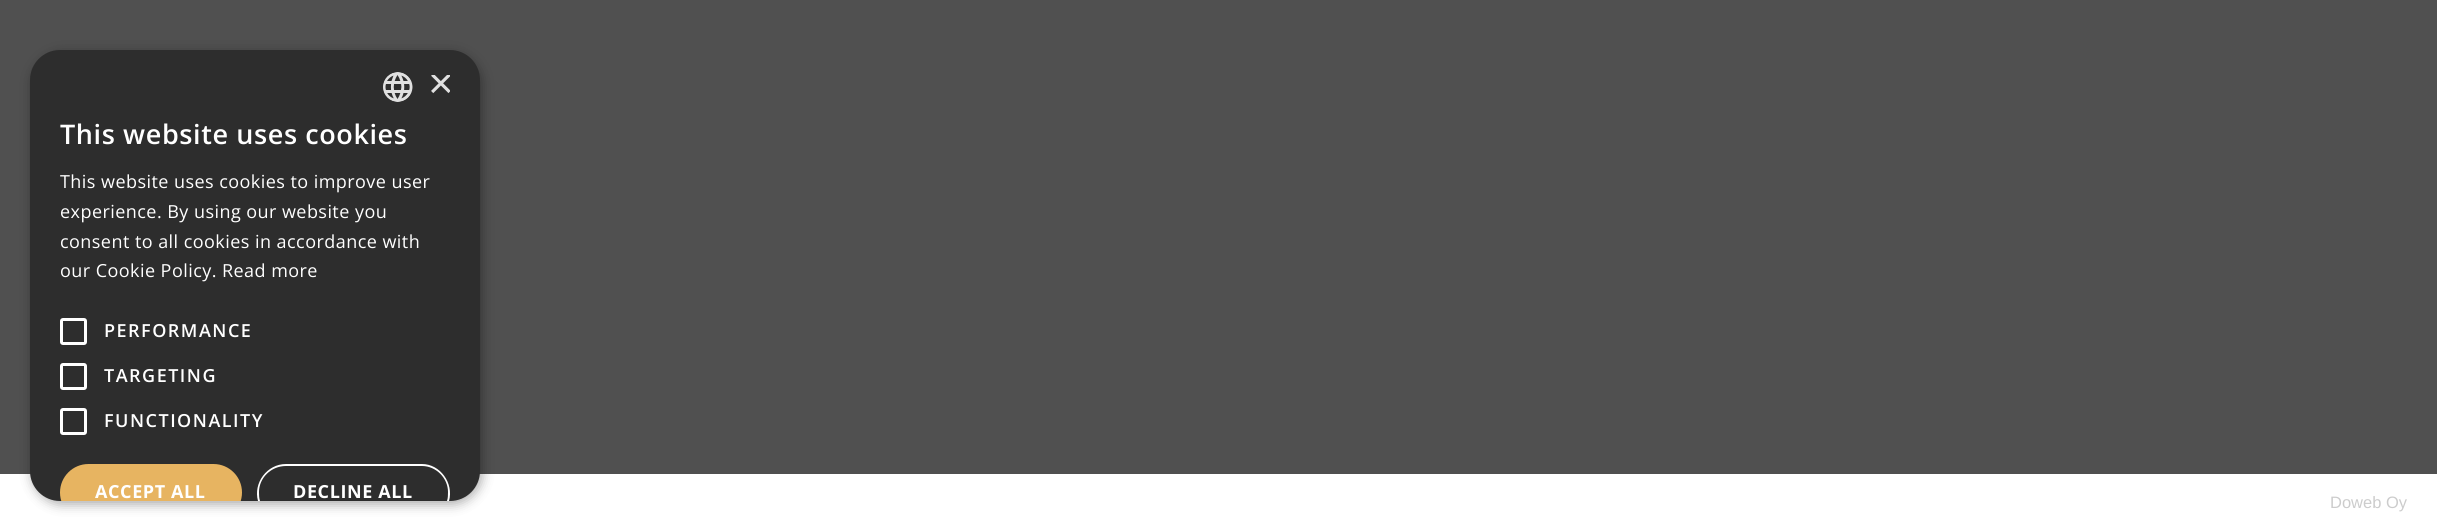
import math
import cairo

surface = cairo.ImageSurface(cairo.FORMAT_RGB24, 2437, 531)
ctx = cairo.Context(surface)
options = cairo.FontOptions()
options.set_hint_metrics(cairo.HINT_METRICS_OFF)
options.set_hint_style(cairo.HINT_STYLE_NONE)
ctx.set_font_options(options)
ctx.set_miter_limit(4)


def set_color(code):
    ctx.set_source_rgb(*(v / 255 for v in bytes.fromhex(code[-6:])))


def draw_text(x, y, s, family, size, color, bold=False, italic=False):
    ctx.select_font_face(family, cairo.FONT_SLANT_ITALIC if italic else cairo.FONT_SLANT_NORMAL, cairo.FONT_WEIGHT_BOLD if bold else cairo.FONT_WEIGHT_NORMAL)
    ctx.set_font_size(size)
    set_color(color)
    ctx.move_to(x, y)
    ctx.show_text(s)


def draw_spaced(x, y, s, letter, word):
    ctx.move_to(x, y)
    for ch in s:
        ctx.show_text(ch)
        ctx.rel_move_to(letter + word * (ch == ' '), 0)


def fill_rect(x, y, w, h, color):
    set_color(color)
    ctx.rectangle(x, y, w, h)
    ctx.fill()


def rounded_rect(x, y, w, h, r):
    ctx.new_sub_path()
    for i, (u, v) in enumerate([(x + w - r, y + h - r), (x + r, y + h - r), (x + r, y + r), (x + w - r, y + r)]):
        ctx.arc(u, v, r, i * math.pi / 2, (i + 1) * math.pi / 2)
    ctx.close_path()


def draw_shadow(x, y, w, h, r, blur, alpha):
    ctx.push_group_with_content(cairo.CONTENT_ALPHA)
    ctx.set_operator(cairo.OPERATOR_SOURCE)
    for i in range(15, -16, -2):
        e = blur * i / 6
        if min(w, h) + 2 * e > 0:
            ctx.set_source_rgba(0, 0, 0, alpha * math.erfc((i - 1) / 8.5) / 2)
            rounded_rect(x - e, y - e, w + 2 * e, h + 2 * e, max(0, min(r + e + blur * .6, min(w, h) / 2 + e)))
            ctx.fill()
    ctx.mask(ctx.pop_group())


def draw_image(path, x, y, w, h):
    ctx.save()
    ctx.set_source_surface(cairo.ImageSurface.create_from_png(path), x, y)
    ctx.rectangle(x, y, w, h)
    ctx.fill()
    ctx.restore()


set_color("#ffffff")
ctx.paint()
fill_rect(0, 0, 2437, 474, "#505050")
set_color("#000000")
draw_shadow(32, 53, 450, 451, 30, 6, 0.35)
set_color("#2d2d2d")
rounded_rect(30, 50, 450, 451, 30)
ctx.fill()
draw_image("assets/img1.png", 383, 72, 30, 30)
ctx.save()
ctx.rectangle(428, 75, 22, 23)
ctx.clip()
draw_text(428, 98, "×", "Liberation Sans", 44, "#e0e0e0")
ctx.restore()
ctx.select_font_face("Open Sans SemiBold")
ctx.set_font_size(27)
set_color("#ffffff")
draw_spaced(60, 144, "This website uses cookies", 0.6, 0)
ctx.select_font_face("Open Sans")
ctx.set_font_size(18)
draw_spaced(60, 188, "This website uses cookies to improve user", 0.45, 0)
draw_spaced(60, 218, "experience. By using our website you", 0.45, 0)
draw_spaced(60, 248, "consent to all cookies in accordance with", 0.45, 0)
draw_spaced(60, 277, "our Cookie Policy. Read more", 0.45, 0)
rounded_rect(61.5, 319.5, 24, 24, 1.5)
ctx.set_line_width(3)
ctx.stroke()
ctx.select_font_face("Open Sans SemiBold")
draw_spaced(104, 337, "PERFORMANCE", 1.5, 0)
rounded_rect(61.5, 364.5, 24, 24, 1.5)
ctx.stroke()
draw_spaced(104, 382, "TARGETING", 1.5, 0)
rounded_rect(61.5, 409.5, 24, 24, 1.5)
ctx.stroke()
draw_spaced(104, 427, "FUNCTIONALITY", 1.5, 0)
ctx.save()
rounded_rect(30, 50, 450, 451, 30)
ctx.clip()
set_color("#e7b461")
rounded_rect(60, 464, 182, 57, 28.5)
ctx.fill()
ctx.restore()
ctx.select_font_face("Open Sans", cairo.FONT_SLANT_NORMAL, cairo.FONT_WEIGHT_BOLD)
draw_spaced(95, 498, "ACCEPT ALL", 0.6, 0)
ctx.new_path()
ctx.move_to(286, 464)
ctx.curve_to(267, 464, 253, 483, 258, 501)
ctx.line_to(260, 501)
ctx.curve_to(259, 498, 259, 495, 259, 492)
ctx.curve_to(259, 478, 271, 466, 286, 466)
ctx.line_to(422, 466)
ctx.curve_to(436, 466, 448, 478, 448, 492)
ctx.curve_to(448, 495, 448, 498, 447, 501)
ctx.line_to(449, 501)
ctx.curve_to(454, 483, 440, 464, 422, 464)
ctx.close_path()
ctx.fill()
draw_spaced(293, 498, "DECLINE ALL", 0.6, 0)
draw_text(2330, 508, "Doweb Oy", "Liberation Sans", 16.5, "#cccccc")
surface.write_to_png("output.png")
